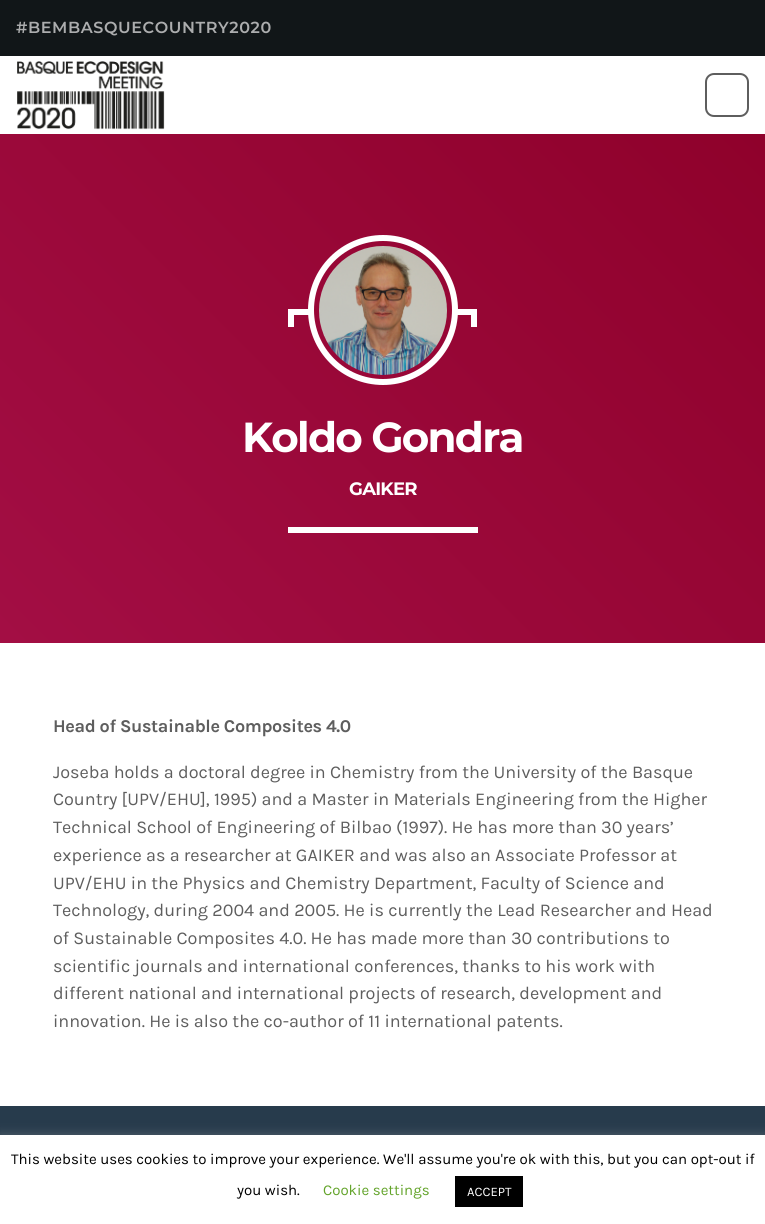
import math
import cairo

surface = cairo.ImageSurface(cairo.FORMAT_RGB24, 765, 1224)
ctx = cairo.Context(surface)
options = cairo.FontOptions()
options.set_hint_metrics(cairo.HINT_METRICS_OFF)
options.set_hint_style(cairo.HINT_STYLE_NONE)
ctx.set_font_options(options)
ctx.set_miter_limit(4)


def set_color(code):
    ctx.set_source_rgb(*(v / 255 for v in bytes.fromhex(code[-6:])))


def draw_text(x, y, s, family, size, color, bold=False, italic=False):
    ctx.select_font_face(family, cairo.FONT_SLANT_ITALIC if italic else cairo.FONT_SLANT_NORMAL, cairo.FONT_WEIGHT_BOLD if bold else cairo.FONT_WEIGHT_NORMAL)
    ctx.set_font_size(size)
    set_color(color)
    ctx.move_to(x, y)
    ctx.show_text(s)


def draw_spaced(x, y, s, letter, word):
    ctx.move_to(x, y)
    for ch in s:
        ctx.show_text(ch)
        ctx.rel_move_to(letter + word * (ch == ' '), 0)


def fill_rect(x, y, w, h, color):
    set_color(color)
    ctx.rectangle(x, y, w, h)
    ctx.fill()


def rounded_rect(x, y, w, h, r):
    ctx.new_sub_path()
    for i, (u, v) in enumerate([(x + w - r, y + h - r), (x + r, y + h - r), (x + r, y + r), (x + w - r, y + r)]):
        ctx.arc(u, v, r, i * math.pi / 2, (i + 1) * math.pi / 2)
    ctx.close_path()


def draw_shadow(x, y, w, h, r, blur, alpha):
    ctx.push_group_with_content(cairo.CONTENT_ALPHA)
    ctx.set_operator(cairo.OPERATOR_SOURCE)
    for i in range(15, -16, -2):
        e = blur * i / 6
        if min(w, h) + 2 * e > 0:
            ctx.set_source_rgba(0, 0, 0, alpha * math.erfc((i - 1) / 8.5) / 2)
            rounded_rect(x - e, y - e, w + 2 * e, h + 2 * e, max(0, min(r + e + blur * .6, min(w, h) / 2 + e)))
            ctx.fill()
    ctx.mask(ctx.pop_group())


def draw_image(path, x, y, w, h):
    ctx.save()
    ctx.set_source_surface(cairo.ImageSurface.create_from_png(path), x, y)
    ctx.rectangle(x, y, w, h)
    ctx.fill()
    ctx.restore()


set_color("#ffffff")
ctx.paint()
fill_rect(0, 0, 765, 56, "#111618")
ctx.select_font_face("Montserrat SemiBold")
ctx.set_font_size(16)
set_color("#acadae")
draw_spaced(16, 33, "#BEMBASQUECOUNTRY2020", 0.6, 0)
draw_image("assets/img1.png", 17, 61, 148, 69)
rounded_rect(706, 74, 42, 42, 8)
set_color("#5e5e5e")
ctx.stroke()
gradient = cairo.LinearGradient(64, 707, 701, 70)
gradient.add_color_stop_rgba(0, 0.639, 0.055, 0.267, 1)
gradient.add_color_stop_rgba(1, 0.561, 0.004, 0.169, 1)
ctx.set_source(gradient)
ctx.rectangle(0, 134, 765, 509)
ctx.fill()
ctx.arc(383, 310, 72, 0, 2 * math.pi)
set_color("#ffffff")
ctx.set_line_width(6)
ctx.stroke()
fill_rect(288, 309, 25, 6, "#ffffff")
fill_rect(288, 309, 6, 18, "#ffffff")
draw_image("assets/img2.png", 319, 246, 128, 129)
fill_rect(452, 309, 25, 6, "#ffffff")
fill_rect(471, 309, 6, 18, "#ffffff")
ctx.select_font_face("Montserrat", cairo.FONT_SLANT_NORMAL, cairo.FONT_WEIGHT_BOLD)
ctx.set_font_size(42)
draw_spaced(242, 452, "Koldo Gondra", -1.75, 0)
ctx.set_font_size(18)
draw_spaced(349, 495, "GAIKER", -0.75, 0)
fill_rect(288, 527, 190, 6, "#ffffff")
ctx.select_font_face("Karla", cairo.FONT_SLANT_NORMAL, cairo.FONT_WEIGHT_BOLD)
set_color("#5e5e5e")
draw_spaced(53, 732, "Head of Sustainable Composites 4.0", -0.35, 0)
draw_text(53, 778, "Joseba holds a doctoral degree in Chemistry from the University of the Basque", "Karla", 18, "#5e5e5e")
draw_text(53, 805, "Country [UPV/EHU], 1995) and a Master in Materials Engineering from the Higher", "Karla", 18, "#5e5e5e")
draw_text(53, 833, "Technical School of Engineering of Bilbao (1997). He has more than 30 years’", "Karla", 18, "#5e5e5e")
draw_text(53, 861, "experience as a researcher at GAIKER and was also an Associate Professor at", "Karla", 18, "#5e5e5e")
draw_text(53, 889, "UPV/EHU in the Physics and Chemistry Department, Faculty of Science and", "Karla", 18, "#5e5e5e")
draw_text(53, 916, "Technology, during 2004 and 2005. He is currently the Lead Researcher and Head", "Karla", 18, "#5e5e5e")
draw_text(53, 944, "of Sustainable Composites 4.0. He has made more than 30 contributions to", "Karla", 18, "#5e5e5e")
draw_text(53, 972, "scientific journals and international conferences, thanks to his work with", "Karla", 18, "#5e5e5e")
draw_text(53, 999, "different national and international projects of research, development and", "Karla", 18, "#5e5e5e")
draw_text(53, 1027, "innovation. He is also the co-author of 11 international patents.", "Karla", 18, "#5e5e5e")
fill_rect(0, 1106, 765, 29, "#273b4c")
set_color("#acabab")
draw_shadow(0, 1134, 765, 89, 0, 5, 0.3)
fill_rect(0, 1135, 765, 89, "#ffffff")
draw_text(11, 1164, "This website uses cookies to improve your experience. We'll assume you're ok with this, but you can opt-out if", "Karla", 15, "#000000")
draw_text(237, 1195, "you wish.", "Karla", 15, "#000000")
draw_text(323, 1195, "Cookie settings", "Karla", 15, "#62a329")
fill_rect(455, 1176, 68, 31, "#000000")
draw_text(467, 1196, "ACCEPT", "Karla", 13, "#ffffff")
surface.write_to_png("output.png")
